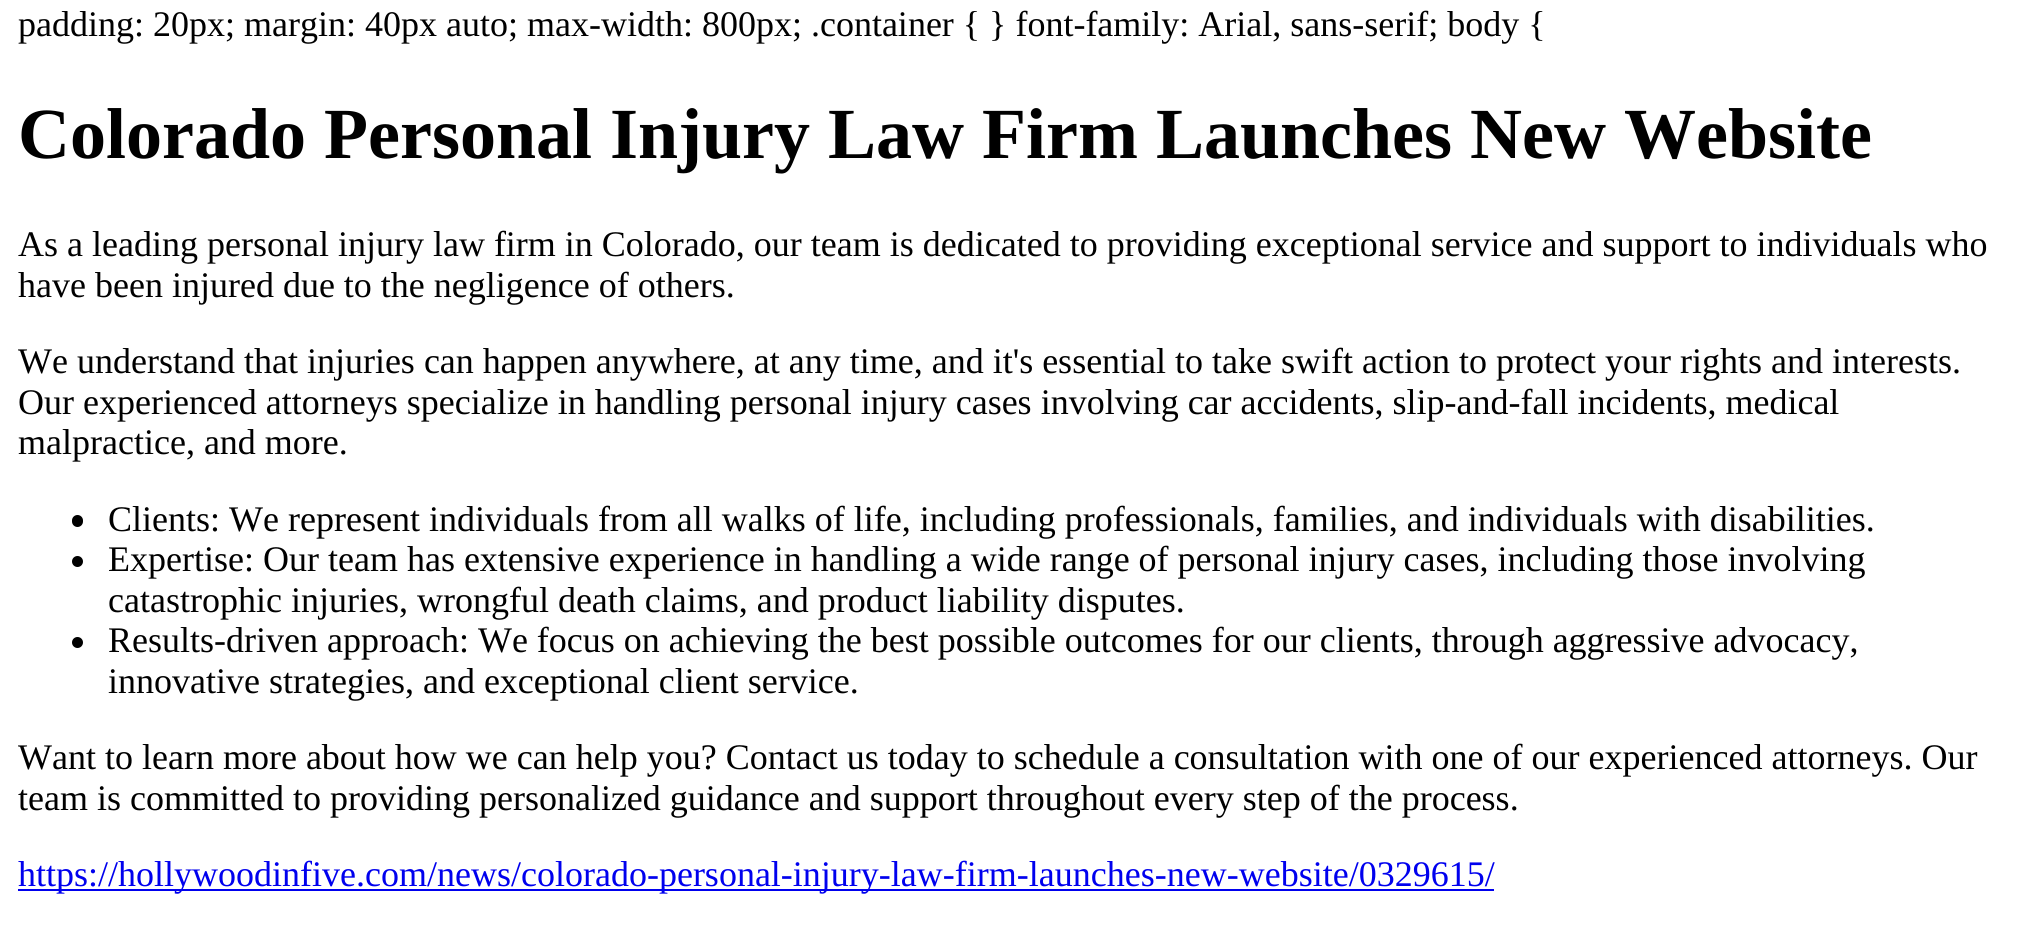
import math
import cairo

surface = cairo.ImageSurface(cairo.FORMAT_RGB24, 2034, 925)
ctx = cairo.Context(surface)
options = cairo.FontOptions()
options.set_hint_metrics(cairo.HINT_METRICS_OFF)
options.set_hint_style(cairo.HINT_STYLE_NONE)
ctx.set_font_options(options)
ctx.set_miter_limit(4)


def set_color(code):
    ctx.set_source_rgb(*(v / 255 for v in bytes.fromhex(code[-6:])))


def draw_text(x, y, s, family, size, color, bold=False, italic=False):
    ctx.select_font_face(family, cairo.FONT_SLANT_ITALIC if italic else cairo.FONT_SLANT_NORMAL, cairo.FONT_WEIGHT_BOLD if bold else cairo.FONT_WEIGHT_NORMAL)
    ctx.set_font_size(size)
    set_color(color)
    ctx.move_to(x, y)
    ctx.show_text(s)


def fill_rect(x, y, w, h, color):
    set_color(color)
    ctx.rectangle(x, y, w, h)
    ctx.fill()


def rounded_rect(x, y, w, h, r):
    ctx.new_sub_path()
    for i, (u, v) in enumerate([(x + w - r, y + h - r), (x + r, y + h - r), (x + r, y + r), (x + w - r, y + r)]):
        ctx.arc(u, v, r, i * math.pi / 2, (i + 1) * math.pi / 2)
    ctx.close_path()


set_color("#ffffff")
ctx.paint()
draw_text(18, 36, "padding: 20px; margin: 40px auto; max-width: 800px; .container { } font-family: Arial, sans-serif; body {", "Liberation Serif", 36, "#000000")
draw_text(18, 158, "Colorado Personal Injury Law Firm Launches New Website", "Liberation Serif", 72, "#000000", bold=True)
draw_text(18, 256, "As a leading personal injury law firm in Colorado, our team is dedicated to providing exceptional service and support to individuals who", "Liberation Serif", 36, "#000000")
draw_text(18, 297, "have been injured due to the negligence of others.", "Liberation Serif", 36, "#000000")
draw_text(18, 373, "We understand that injuries can happen anywhere, at any time, and it's essential to take swift action to protect your rights and interests.", "Liberation Serif", 36, "#000000")
draw_text(18, 414, "Our experienced attorneys specialize in handling personal injury cases involving car accidents, slip-and-fall incidents, medical", "Liberation Serif", 36, "#000000")
draw_text(18, 454, "malpractice, and more.", "Liberation Serif", 36, "#000000")
rounded_rect(72, 515, 11, 12, 5.5)
ctx.fill()
draw_text(108, 531, "Clients: We represent individuals from all walks of life, including professionals, families, and individuals with disabilities.", "Liberation Serif", 36, "#000000")
ctx.new_path()
ctx.arc(77.5, 561.5, 5.5, 0, 2 * math.pi)
ctx.fill()
draw_text(108, 571, "Expertise: Our team has extensive experience in handling a wide range of personal injury cases, including those involving", "Liberation Serif", 36, "#000000")
draw_text(108, 612, "catastrophic injuries, wrongful death claims, and product liability disputes.", "Liberation Serif", 36, "#000000")
ctx.new_path()
ctx.arc(77.5, 642.5, 5.5, 0, 2 * math.pi)
ctx.fill()
draw_text(108, 652, "Results-driven approach: We focus on achieving the best possible outcomes for our clients, through aggressive advocacy,", "Liberation Serif", 36, "#000000")
draw_text(108, 693, "innovative strategies, and exceptional client service.", "Liberation Serif", 36, "#000000")
draw_text(18, 769, "Want to learn more about how we can help you? Contact us today to schedule a consultation with one of our experienced attorneys. Our", "Liberation Serif", 36, "#000000")
draw_text(18, 810, "team is committed to providing personalized guidance and support throughout every step of the process.", "Liberation Serif", 36, "#000000")
fill_rect(18, 889, 1476, 2, "#0000ee")
draw_text(18, 886, "https://hollywoodinfive.com/news/colorado-personal-injury-law-firm-launches-new-website/0329615/", "Liberation Serif", 36, "#0000ee")
surface.write_to_png("output.png")
